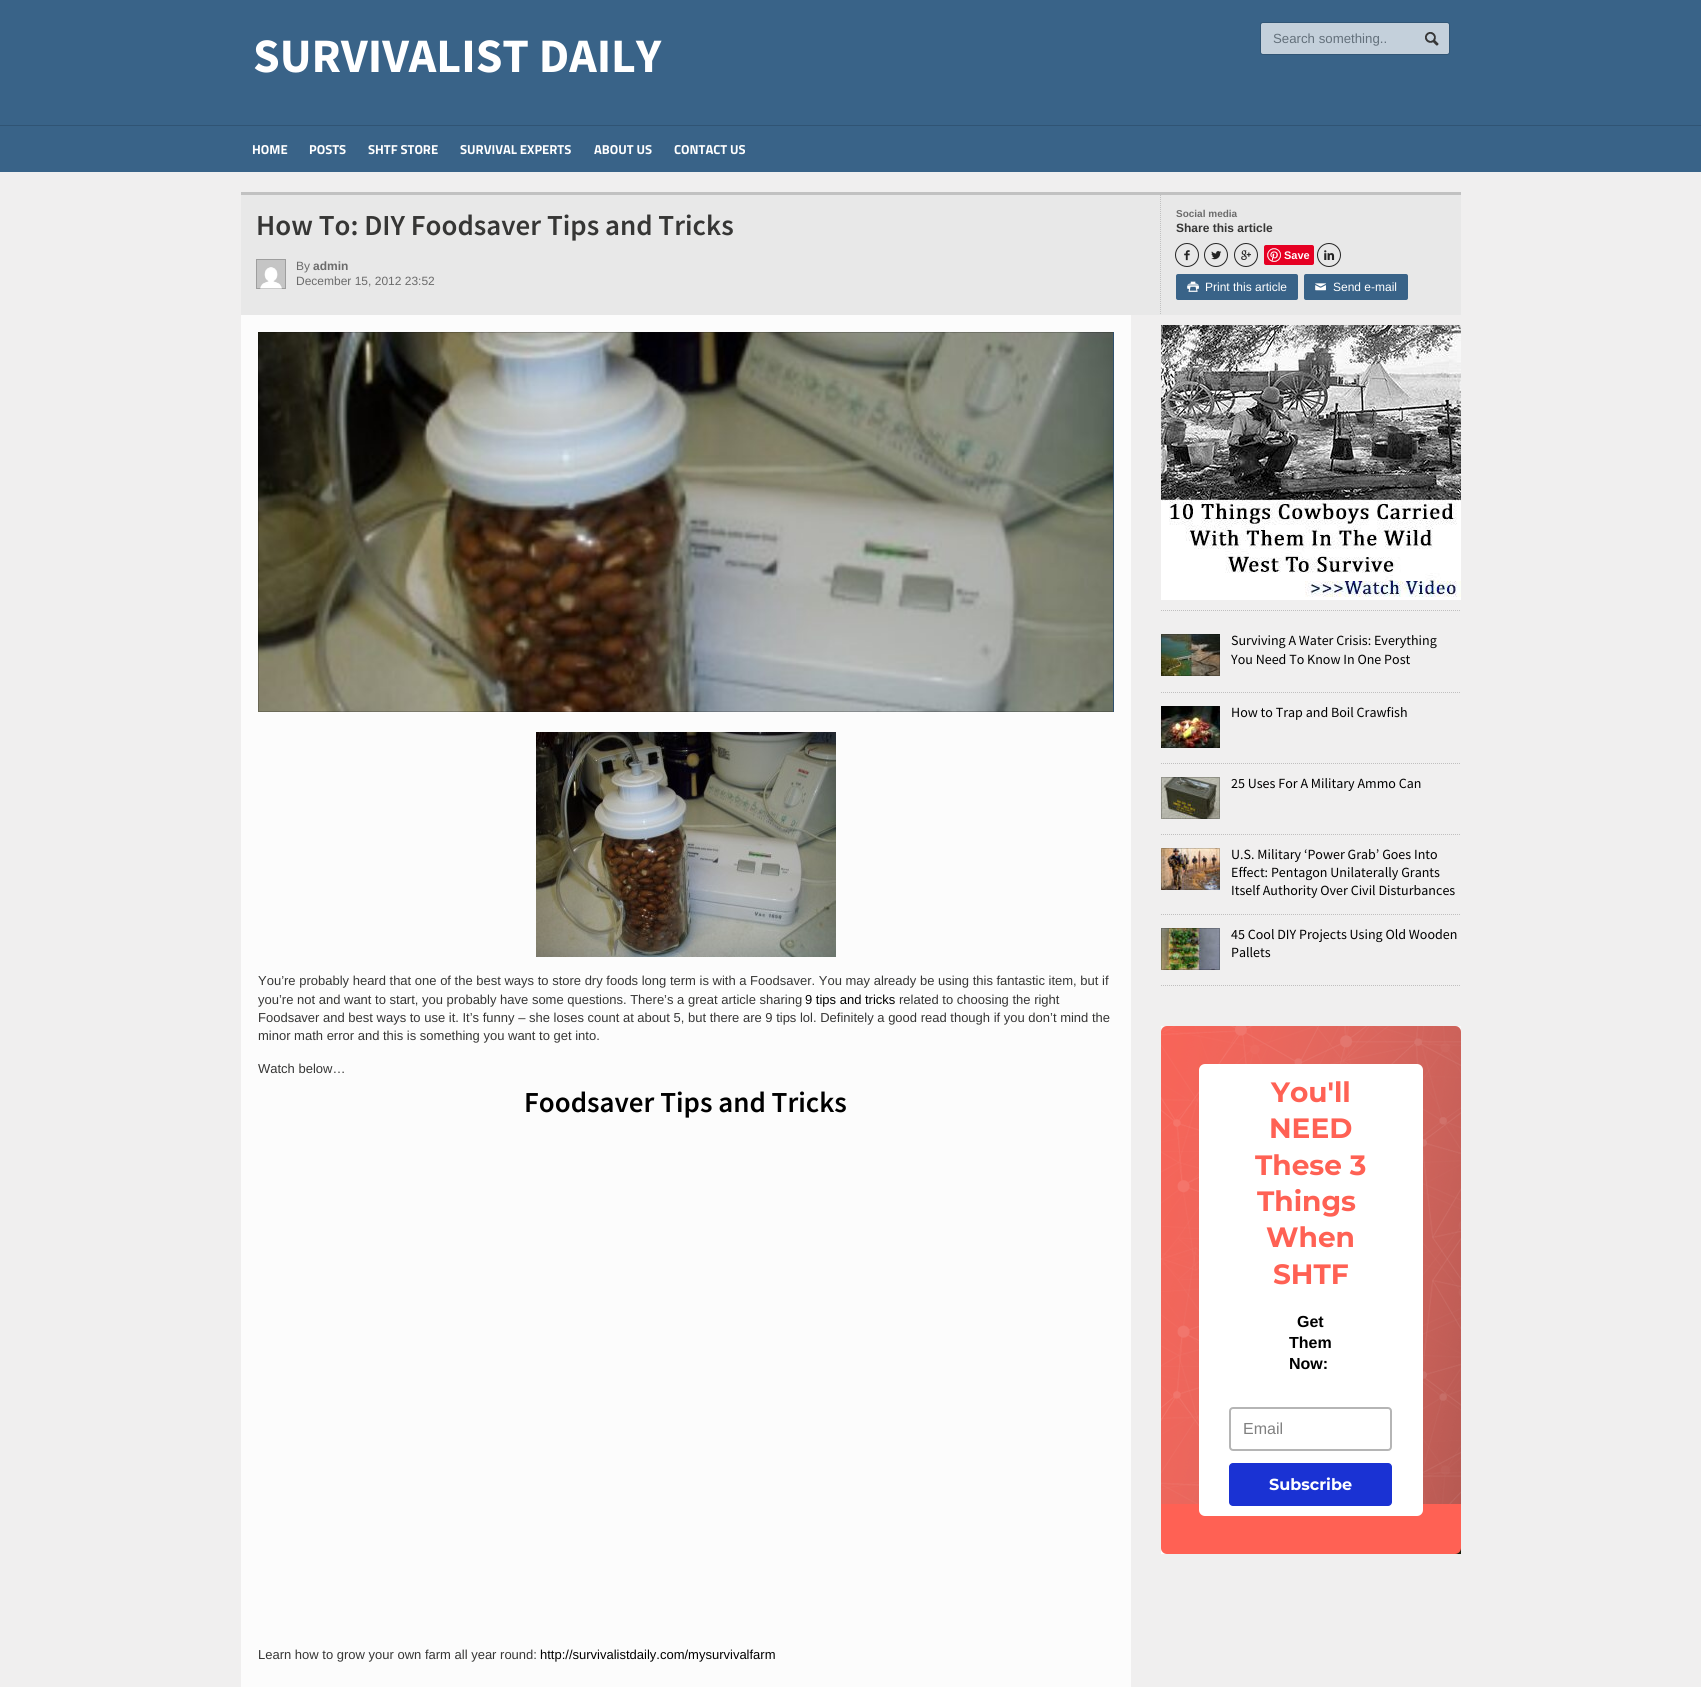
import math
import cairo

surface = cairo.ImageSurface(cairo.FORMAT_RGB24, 1701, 1687)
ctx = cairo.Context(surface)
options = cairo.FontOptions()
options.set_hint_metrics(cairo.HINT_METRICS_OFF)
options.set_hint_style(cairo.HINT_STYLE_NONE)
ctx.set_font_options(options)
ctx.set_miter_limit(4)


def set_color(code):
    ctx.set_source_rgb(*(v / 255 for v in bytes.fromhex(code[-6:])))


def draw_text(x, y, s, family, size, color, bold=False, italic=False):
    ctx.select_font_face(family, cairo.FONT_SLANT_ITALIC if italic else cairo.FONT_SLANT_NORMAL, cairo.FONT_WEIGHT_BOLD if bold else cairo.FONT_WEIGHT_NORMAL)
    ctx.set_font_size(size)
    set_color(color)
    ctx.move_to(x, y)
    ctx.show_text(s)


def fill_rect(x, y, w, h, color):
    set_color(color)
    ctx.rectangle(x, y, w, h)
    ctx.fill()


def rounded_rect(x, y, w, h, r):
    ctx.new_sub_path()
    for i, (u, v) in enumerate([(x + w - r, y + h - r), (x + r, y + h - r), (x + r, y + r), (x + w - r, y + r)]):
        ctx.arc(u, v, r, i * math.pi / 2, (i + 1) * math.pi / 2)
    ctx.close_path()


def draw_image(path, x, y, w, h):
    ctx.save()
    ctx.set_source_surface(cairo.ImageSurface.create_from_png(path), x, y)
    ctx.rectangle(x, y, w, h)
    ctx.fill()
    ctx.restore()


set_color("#f0efef")
ctx.paint()
fill_rect(0, 0, 1701, 172, "#396388")
draw_text(253, 72, "SURVIVALIST DAILY", "Source Sans Pro", 48, "#ffffff", bold=True)
rounded_rect(1260.5, 22.5, 189, 32, 2.5)
set_color("#315575")
ctx.set_line_width(1)
ctx.stroke()
set_color("#c4d0db")
rounded_rect(1261, 23, 188, 31, 2)
ctx.fill()
draw_text(1273, 43, "Search something..", "Liberation Sans", 13.25, "#63707b")
draw_image("assets/img1.png", 1425, 32, 14, 14)
fill_rect(0, 125, 1701, 1, "#305474")
draw_text(252, 154, "HOME", "Titillium Web", 13, "#ffffff", bold=True)
draw_text(309, 154, "POSTS", "Titillium Web", 13, "#ffffff", bold=True)
draw_text(368, 154, "SHTF STORE", "Titillium Web", 13, "#ffffff", bold=True)
draw_text(460, 154, "SURVIVAL EXPERTS", "Titillium Web", 13, "#ffffff", bold=True)
draw_text(594, 154, "ABOUT US", "Titillium Web", 13, "#ffffff", bold=True)
draw_text(674, 154, "CONTACT US", "Titillium Web", 13, "#ffffff", bold=True)
fill_rect(241, 195, 1220, 120, "#e8e8e8")
fill_rect(241, 192, 1220, 3, "#c1c1c1")
draw_text(256, 235, "How To: DIY Foodsaver Tips and Tricks", "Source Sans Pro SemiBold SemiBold", 29, "#363635")
ctx.new_path()
ctx.move_to(1160.5, 195)
ctx.line_to(1160.5, 315)
set_color("#c1c1c1")
ctx.set_dash([1, 1])
ctx.stroke()
draw_text(1176, 217, "Social media", "Liberation Sans", 10, "#6b6b6b", bold=True)
draw_text(1176, 232, "Share this article", "Liberation Sans", 12, "#363635", bold=True)
ctx.new_path()
ctx.arc(1187, 255, 11.5, 0, 2 * math.pi)
set_color("#232323")
ctx.set_dash([])
ctx.stroke()
draw_image("assets/img2.png", 1184, 250, 6, 11)
ctx.arc(1216, 255, 11.5, 0, 2 * math.pi)
ctx.stroke()
draw_image("assets/img3.png", 1211, 251, 11, 9)
ctx.arc(1246, 255, 11.5, 0, 2 * math.pi)
ctx.stroke()
draw_image("assets/img4.png", 1241, 250, 10, 10)
set_color("#e60023")
rounded_rect(1264, 245, 50, 20, 2)
ctx.fill()
draw_image("assets/img5.png", 1267, 248, 14, 14)
draw_text(1284, 259, "Save", "Liberation Sans", 11, "#ffffff", bold=True)
ctx.new_path()
ctx.arc(1329, 255, 11.5, 0, 2 * math.pi)
set_color("#232323")
ctx.stroke()
draw_image("assets/img6.png", 1324, 250, 11, 10)
set_color("#396388")
rounded_rect(1176, 274, 122, 26, 2)
ctx.fill()
draw_image("assets/img7.png", 1187, 281, 12, 11)
draw_text(1205, 291, "Print this article", "Liberation Sans", 12, "#ffffff")
set_color("#396388")
rounded_rect(1304, 274, 104, 26, 2)
ctx.fill()
draw_image("assets/img8.png", 1315, 283, 11, 8)
draw_text(1333, 291, "Send e-mail", "Liberation Sans", 12, "#ffffff")
draw_image("assets/img9.png", 256, 259, 30, 30)
ctx.rectangle(256.5, 259.5, 29, 29)
ctx.set_source_rgba(0, 0, 0, 0.2)
ctx.stroke()
draw_text(296, 270, "By", "Liberation Sans", 12, "#6b6b6b")
draw_text(313, 270, "admin", "Liberation Sans", 12, "#6b6b6b", bold=True)
draw_text(296, 285, "December 15, 2012 23:52", "Liberation Sans", 12, "#6b6b6b")
fill_rect(241, 315, 890, 1372, "#fcfcfc")
fill_rect(1113, 332, 1, 380, "#396388")
draw_image("assets/img10.png", 258, 332, 855, 380)
ctx.rectangle(258.5, 332.5, 855, 379)
ctx.set_source_rgba(0, 0, 0, 0.2)
ctx.stroke()
draw_image("assets/img11.png", 536, 732, 300, 225)
draw_text(258, 985, "You’re probably heard that one of the best ways to store dry foods long term is with a Foodsaver. You may already be using this fantastic item, but if", "Liberation Sans", 13, "#363635")
draw_text(258, 1004, "you’re not and want to start, you probably have some questions. There’s a great article sharing", "Liberation Sans", 13, "#363635")
draw_text(805, 1004, "9 tips and tricks", "Liberation Sans", 13, "#000000")
draw_text(899, 1004, "related to choosing the right", "Liberation Sans", 13, "#363635")
draw_text(258, 1022, "Foodsaver and best ways to use it. It’s funny – she loses count at about 5, but there are 9 tips lol. Definitely a good read though if you don’t mind the", "Liberation Sans", 13, "#363635")
draw_text(258, 1040, "minor math error and this is something you want to get into.", "Liberation Sans", 13, "#363635")
draw_text(258, 1073, "Watch below…", "Liberation Sans", 13, "#363635")
draw_text(524, 1112, "Foodsaver Tips and Tricks", "Source Sans Pro SemiBold SemiBold", 29, "#000000")
draw_text(258, 1659, "Learn how to grow your own farm all year round:", "Liberation Sans", 13, "#363635")
draw_text(540, 1659, "http://survivalistdaily.com/mysurvivalfarm", "Liberation Sans", 13, "#000000")
ctx.new_path()
ctx.move_to(1161, 610.5)
ctx.line_to(1461, 610.5)
set_color("#c0bfbf")
ctx.set_dash([1, 1])
ctx.stroke()
draw_image("assets/img12.png", 1161, 325, 300, 275)
ctx.new_path()
ctx.move_to(1161, 985.5)
ctx.line_to(1461, 985.5)
ctx.stroke()
ctx.new_path()
ctx.move_to(1161, 692.5)
ctx.line_to(1461, 692.5)
ctx.stroke()
draw_image("assets/img13.png", 1161, 634, 59, 42)
ctx.rectangle(1161.5, 634.5, 58, 41)
ctx.set_source_rgba(0, 0, 0, 0.2)
ctx.set_dash([])
ctx.stroke()
draw_text(1231, 645, "Surviving A Water Crisis: Everything", "Source Sans Pro", 14, "#000000")
draw_text(1231, 664, "You Need To Know In One Post", "Source Sans Pro", 14, "#000000")
ctx.new_path()
ctx.move_to(1161, 763.5)
ctx.line_to(1461, 763.5)
set_color("#c0bfbf")
ctx.set_dash([1, 1])
ctx.stroke()
draw_image("assets/img14.png", 1161, 706, 59, 42)
ctx.rectangle(1161.5, 706.5, 58, 41)
ctx.set_source_rgba(0, 0, 0, 0.2)
ctx.set_dash([])
ctx.stroke()
draw_text(1231, 717, "How to Trap and Boil Crawfish", "Source Sans Pro", 14, "#000000")
ctx.new_path()
ctx.move_to(1161, 834.5)
ctx.line_to(1461, 834.5)
set_color("#c0bfbf")
ctx.set_dash([1, 1])
ctx.stroke()
draw_image("assets/img15.png", 1161, 777, 59, 42)
ctx.rectangle(1161.5, 777.5, 58, 41)
ctx.set_source_rgba(0, 0, 0, 0.2)
ctx.set_dash([])
ctx.stroke()
draw_text(1231, 788, "25 Uses For A Military Ammo Can", "Source Sans Pro", 14, "#000000")
ctx.new_path()
ctx.move_to(1161, 914.5)
ctx.line_to(1461, 914.5)
set_color("#c0bfbf")
ctx.set_dash([1, 1])
ctx.stroke()
draw_image("assets/img16.png", 1161, 848, 59, 42)
ctx.rectangle(1161.5, 848.5, 58, 41)
ctx.set_source_rgba(0, 0, 0, 0.2)
ctx.set_dash([])
ctx.stroke()
draw_text(1231, 859, "U.S. Military ‘Power Grab’ Goes Into", "Source Sans Pro", 14, "#000000")
draw_text(1231, 877, "Effect: Pentagon Unilaterally Grants", "Source Sans Pro", 14, "#000000")
draw_text(1231, 895, "Itself Authority Over Civil Disturbances", "Source Sans Pro", 14, "#000000")
draw_image("assets/img17.png", 1161, 928, 59, 42)
ctx.rectangle(1161.5, 928.5, 58, 41)
ctx.set_source_rgba(0, 0, 0, 0.2)
ctx.stroke()
draw_text(1231, 939, "45 Cool DIY Projects Using Old Wooden", "Source Sans Pro", 14, "#000000")
draw_text(1231, 957, "Pallets", "Source Sans Pro", 14, "#000000")
draw_image("assets/img18.png", 1161, 1026, 300, 528)
set_color("#ff6154")
rounded_rect(1161, 1026, 300, 528, 6)
ctx.fill()
draw_image("assets/img19.png", 1161, 1026, 300, 478)
set_color("#ffffff")
rounded_rect(1199, 1064, 224, 452, 6)
ctx.fill()
draw_text(1271, 1102, "You'll", "Montserrat", 28, "#ff6154", bold=True)
draw_text(1269, 1138, "NEED", "Montserrat", 28, "#ff6154", bold=True)
draw_text(1255, 1175, "These 3", "Montserrat", 28, "#ff6154", bold=True)
draw_text(1257, 1211, "Things", "Montserrat", 28, "#ff6154", bold=True)
draw_text(1266, 1247, "When", "Montserrat", 28, "#ff6154", bold=True)
draw_text(1273, 1284, "SHTF", "Montserrat", 28, "#ff6154", bold=True)
draw_text(1297, 1327, "Get", "Liberation Sans", 16, "#000000", bold=True)
draw_text(1289, 1348, "Them", "Liberation Sans", 16, "#000000", bold=True)
draw_text(1289, 1369, "Now:", "Liberation Sans", 16, "#000000", bold=True)
rounded_rect(1230, 1408, 161, 42, 3)
set_color("#b5b5b5")
ctx.set_line_width(2)
ctx.stroke()
draw_text(1243, 1434, "Email", "Liberation Sans", 16, "#808080")
set_color("#1a32d3")
rounded_rect(1229, 1463, 163, 43, 4)
ctx.fill()
draw_text(1269, 1490, "Subscribe", "Montserrat", 16, "#ffffff", bold=True)
surface.write_to_png("output.png")
